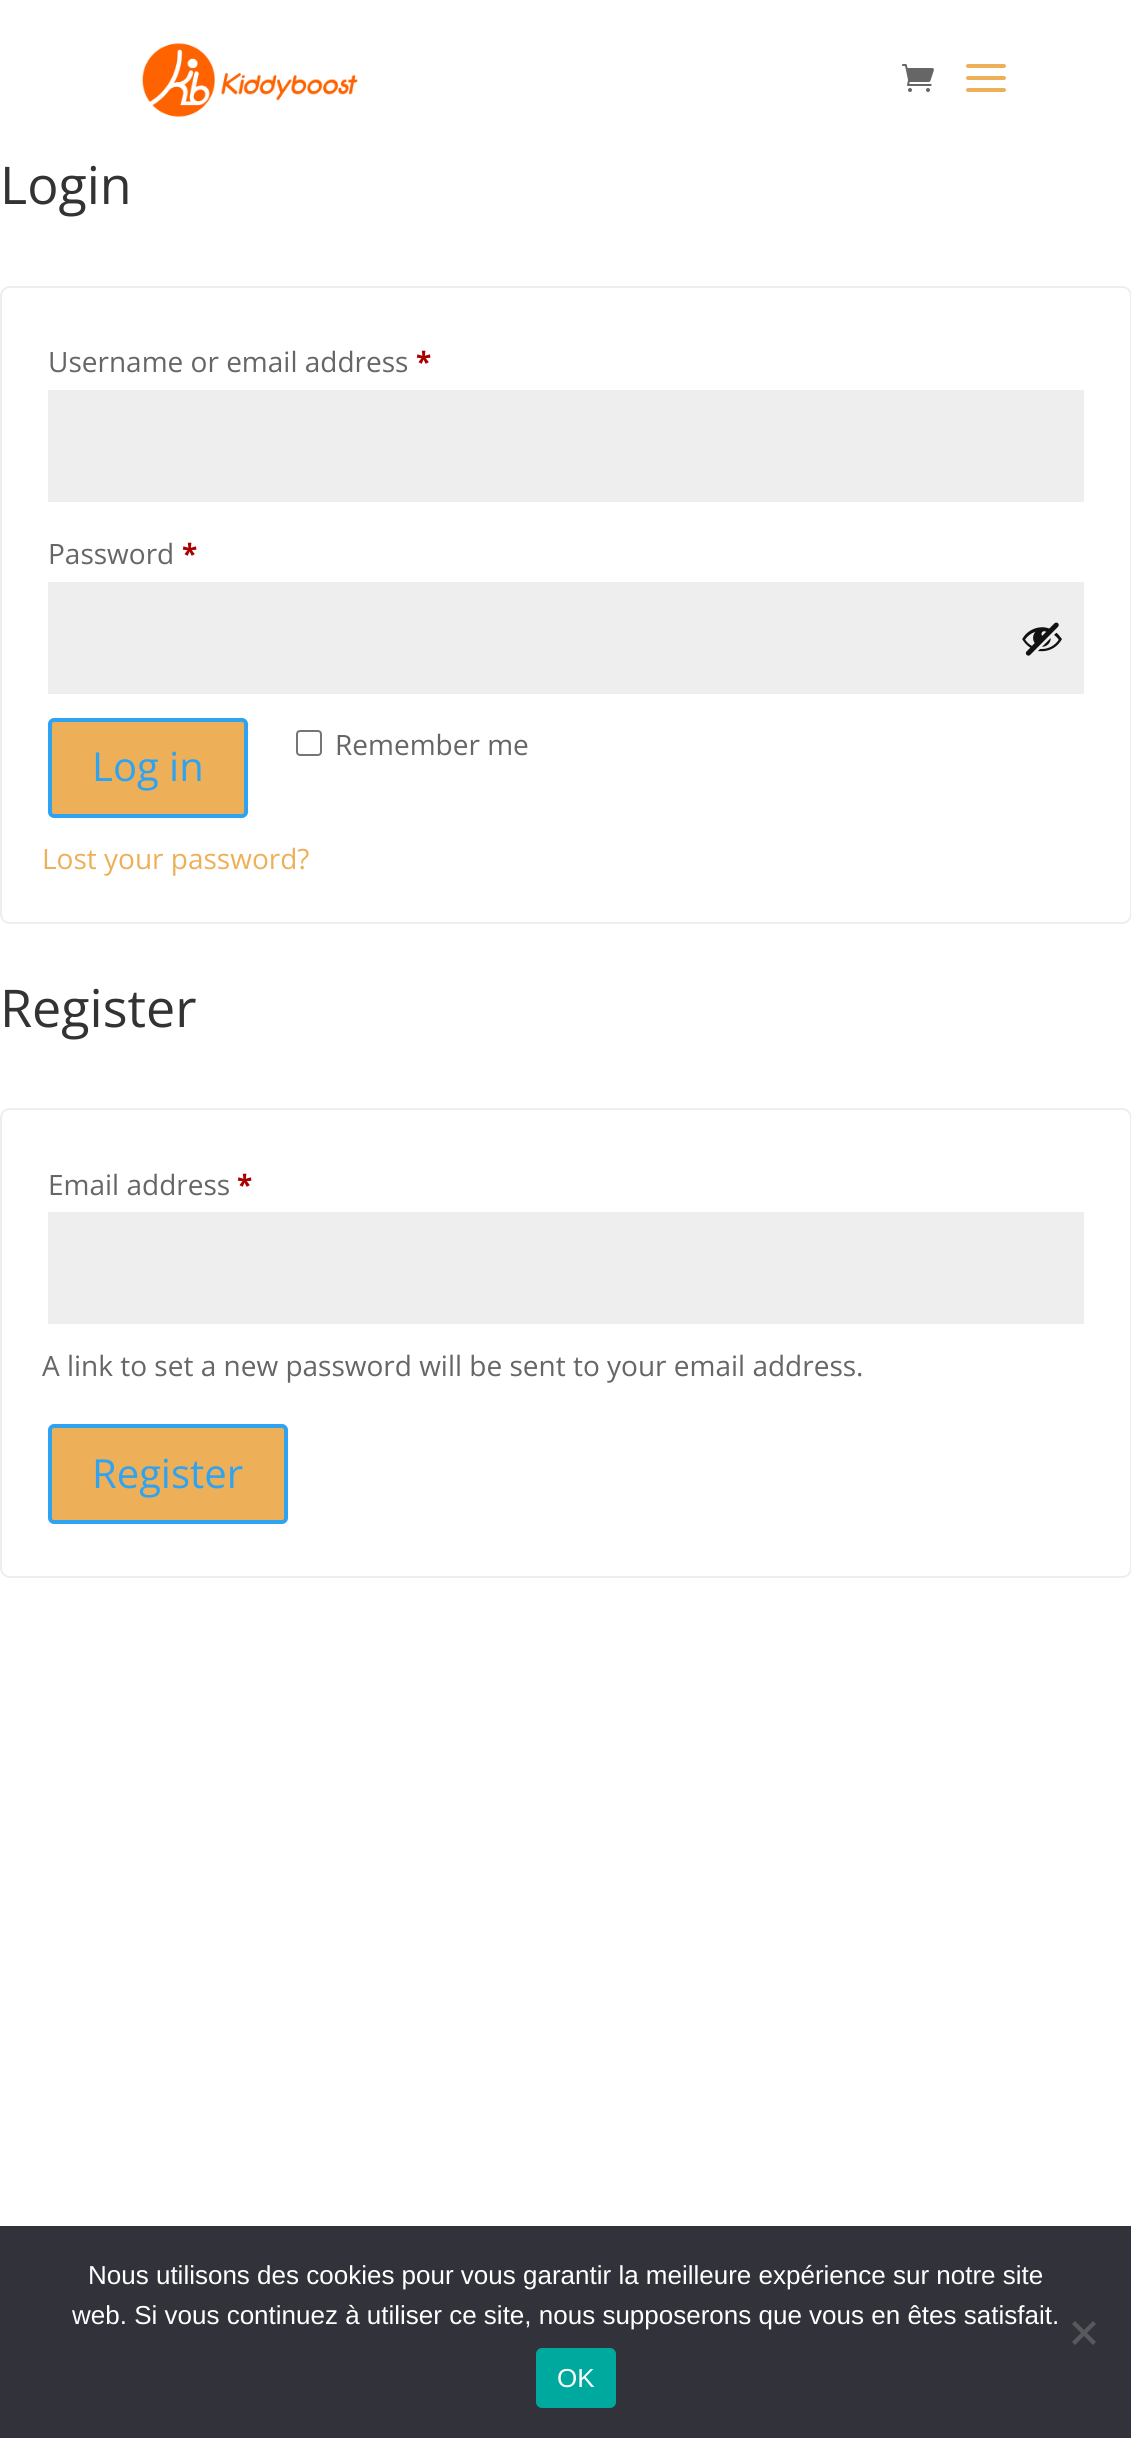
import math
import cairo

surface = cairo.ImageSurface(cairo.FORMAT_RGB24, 1131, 2438)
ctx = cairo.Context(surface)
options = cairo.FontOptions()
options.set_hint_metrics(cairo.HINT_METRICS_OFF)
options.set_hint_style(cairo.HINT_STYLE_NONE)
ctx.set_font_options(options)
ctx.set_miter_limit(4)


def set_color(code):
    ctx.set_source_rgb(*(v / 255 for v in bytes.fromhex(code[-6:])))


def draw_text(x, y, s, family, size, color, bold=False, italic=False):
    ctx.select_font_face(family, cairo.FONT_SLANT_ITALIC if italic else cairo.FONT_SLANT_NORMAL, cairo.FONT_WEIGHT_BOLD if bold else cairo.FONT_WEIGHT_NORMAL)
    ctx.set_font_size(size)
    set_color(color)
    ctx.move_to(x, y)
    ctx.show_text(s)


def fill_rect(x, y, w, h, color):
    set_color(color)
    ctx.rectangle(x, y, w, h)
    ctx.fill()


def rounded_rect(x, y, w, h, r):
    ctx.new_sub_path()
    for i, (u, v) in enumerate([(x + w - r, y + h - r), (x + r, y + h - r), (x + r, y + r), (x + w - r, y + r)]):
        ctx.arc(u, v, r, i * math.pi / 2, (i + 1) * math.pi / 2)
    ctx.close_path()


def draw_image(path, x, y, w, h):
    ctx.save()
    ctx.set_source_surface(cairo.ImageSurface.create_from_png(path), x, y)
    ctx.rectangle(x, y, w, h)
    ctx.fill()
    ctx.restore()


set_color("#ffffff")
ctx.paint()
draw_image("assets/img1.png", 142, 43, 216, 74)
draw_image("assets/img2.png", 902, 64, 32, 28)
draw_image("assets/img3.png", 966, 64, 40, 28)
draw_text(0, 204, "Login", "Open Sans", 52, "#333333")
rounded_rect(1, 287, 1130, 636, 9)
set_color("#eeeeee")
ctx.stroke()
draw_text(48, 372, "Username or email address", "Open Sans", 28, "#666666")
draw_text(416, 372, "*", "Open Sans", 28, "#aa0000", bold=True)
fill_rect(48, 390, 1036, 112, "#eeeeee")
draw_text(48, 564, "Password", "Open Sans", 28, "#666666")
draw_text(182, 564, "*", "Open Sans", 28, "#aa0000", bold=True)
fill_rect(48, 582, 1036, 112, "#eeeeee")
draw_image("assets/img4.png", 1022, 622, 40, 34)
rounded_rect(297, 731, 24, 24, 3)
set_color("#767676")
ctx.stroke()
draw_text(335, 755, "Remember me", "Open Sans", 28, "#666666")
set_color("#edb059")
rounded_rect(50, 720, 196, 96, 4)
ctx.fill_preserve()
set_color("#2ea3f2")
ctx.set_line_width(4)
ctx.stroke()
draw_text(92, 781, "Log in", "Open Sans", 40, "#2ea3f2")
draw_text(42, 869, "Lost your password?", "Open Sans", 28, "#edb059")
draw_text(0, 1027, "Register", "Open Sans", 52, "#333333")
rounded_rect(1, 1109, 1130, 468, 9)
set_color("#eeeeee")
ctx.set_line_width(2)
ctx.stroke()
draw_text(48, 1195, "Email address", "Open Sans", 28, "#666666")
draw_text(237, 1195, "*", "Open Sans", 28, "#aa0000", bold=True)
fill_rect(48, 1212, 1036, 112, "#eeeeee")
draw_text(42, 1376, "A link to set a new password will be sent to your email address.", "Open Sans", 28, "#666666")
set_color("#edb059")
rounded_rect(50, 1426, 236, 96, 4)
ctx.fill_preserve()
set_color("#2ea3f2")
ctx.set_line_width(4)
ctx.stroke()
draw_text(92, 1488, "Register", "Open Sans", 40, "#2ea3f2")
fill_rect(0, 2226, 1131, 212, "#32323a")
draw_text(88, 2284, "Nous utilisons des cookies pour vous garantir la meilleure expérience sur notre site", "Liberation Sans", 26, "#ffffff")
draw_text(72, 2324, "web. Si vous continuez à utiliser ce site, nous supposerons que vous en êtes satisfait.", "Liberation Sans", 26, "#ffffff")
set_color("#59595d")
ctx.new_path()
ctx.move_to(1093, 2321)
ctx.line_to(1096, 2324)
ctx.line_to(1075, 2345)
ctx.line_to(1072, 2342)
ctx.close_path()
ctx.fill()
ctx.new_path()
ctx.move_to(1072, 2324)
ctx.line_to(1075, 2321)
ctx.line_to(1096, 2342)
ctx.line_to(1093, 2345)
ctx.close_path()
ctx.fill()
set_color("#00a99d")
rounded_rect(536, 2348, 80, 60, 6)
ctx.fill()
draw_text(557, 2387, "OK", "Liberation Sans", 26, "#ffffff")
surface.write_to_png("output.png")
